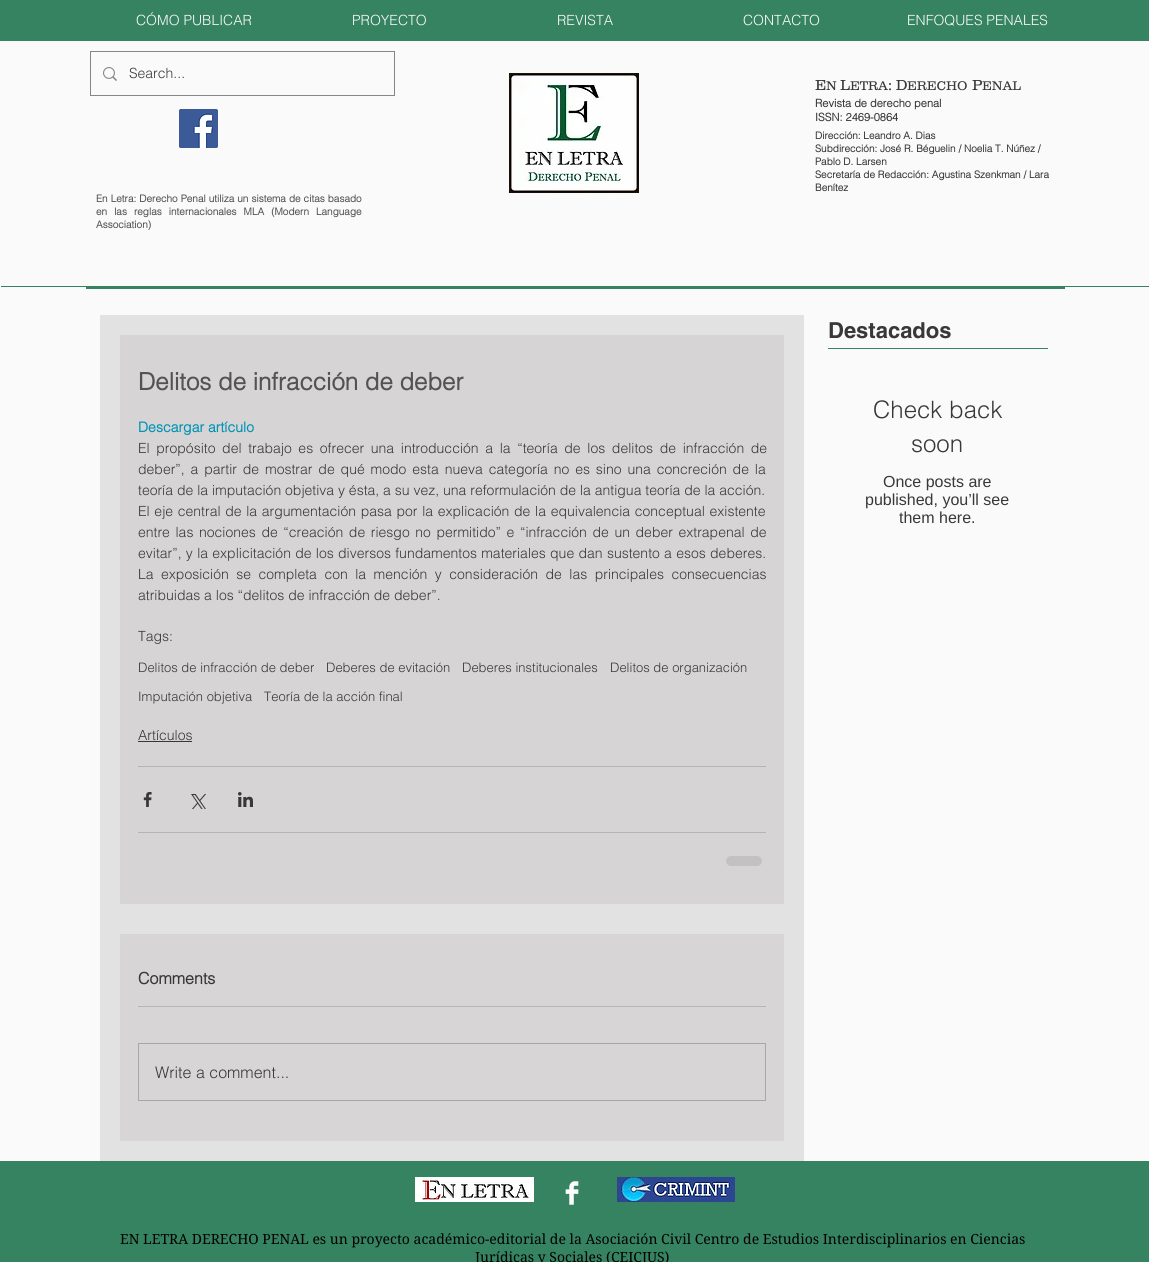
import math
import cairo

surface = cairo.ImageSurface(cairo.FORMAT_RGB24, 1149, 1262)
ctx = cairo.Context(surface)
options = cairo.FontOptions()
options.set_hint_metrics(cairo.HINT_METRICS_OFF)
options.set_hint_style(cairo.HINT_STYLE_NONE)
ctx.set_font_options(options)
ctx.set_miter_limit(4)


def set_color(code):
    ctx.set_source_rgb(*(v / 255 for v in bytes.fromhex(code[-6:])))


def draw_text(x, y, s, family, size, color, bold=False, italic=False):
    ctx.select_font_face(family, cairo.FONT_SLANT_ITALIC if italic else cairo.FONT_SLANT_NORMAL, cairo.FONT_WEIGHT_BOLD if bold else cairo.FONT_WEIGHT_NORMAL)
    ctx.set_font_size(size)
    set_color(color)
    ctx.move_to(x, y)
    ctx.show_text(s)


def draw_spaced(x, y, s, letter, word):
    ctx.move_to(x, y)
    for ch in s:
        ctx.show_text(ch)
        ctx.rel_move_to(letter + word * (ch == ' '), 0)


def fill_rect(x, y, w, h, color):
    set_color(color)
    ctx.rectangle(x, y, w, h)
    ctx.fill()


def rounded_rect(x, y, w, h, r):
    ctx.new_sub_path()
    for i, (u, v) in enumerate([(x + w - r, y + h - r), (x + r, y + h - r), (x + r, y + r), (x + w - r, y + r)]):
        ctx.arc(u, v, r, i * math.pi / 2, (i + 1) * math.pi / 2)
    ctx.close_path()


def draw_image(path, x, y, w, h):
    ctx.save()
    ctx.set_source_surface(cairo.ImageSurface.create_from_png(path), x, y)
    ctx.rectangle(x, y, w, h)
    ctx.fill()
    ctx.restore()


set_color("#fafafa")
ctx.paint()
fill_rect(0, 0, 1149, 41, "#368362")
draw_text(136, 25, "CÓMO PUBLICAR", "helvetica Light", 14, "#fafafa")
draw_text(352, 25, "PROYECTO", "helvetica Light", 14, "#fafafa")
draw_text(557, 25, "REVISTA", "helvetica Light", 14, "#fafafa")
draw_text(743, 25, "CONTACTO", "helvetica Light", 14, "#fafafa")
draw_text(907, 25, "ENFOQUES PENALES", "helvetica Light", 14, "#fafafa")
ctx.rectangle(90.5, 51.5, 304, 44)
set_color("#868686")
ctx.set_line_width(1)
ctx.stroke()
draw_image("assets/img1.png", 103, 67, 14, 14)
draw_text(129, 78, "Search...", "helvetica Light", 14, "#383838")
draw_image("assets/img2.png", 509, 73, 130, 120)
draw_text(815, 90, "E", "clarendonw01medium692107 Light", 15, "#383838")
draw_text(826, 90, "N", "clarendonw01medium692107 Light", 13, "#383838")
draw_text(840, 90, "L", "clarendonw01medium692107 Light", 15, "#383838")
draw_text(850, 90, "ETRA", "clarendonw01medium692107 Light", 13, "#383838")
draw_text(888, 90, ": D", "clarendonw01medium692107 Light", 15, "#383838")
draw_text(907, 90, "ERECHO", "clarendonw01medium692107 Light", 13, "#383838")
draw_text(972, 90, "P", "clarendonw01medium692107 Light", 15, "#383838")
draw_text(982, 90, "ENAL", "clarendonw01medium692107 Light", 13, "#383838")
draw_text(815, 107, "Revista de derecho penal", "helvetica", 11, "#383838", bold=True)
draw_image("assets/img3.png", 179, 109, 39, 39)
draw_text(815, 121, "ISSN: 2469-0864", "helvetica", 11, "#383838", bold=True)
draw_text(815, 139, "Dirección: Leandro A. Dias", "helvetica", 10, "#383838", bold=True)
draw_text(815, 152, "Subdirección: José R. Béguelin / Noelia T. Núñez /", "helvetica", 10, "#383838", bold=True)
draw_text(815, 165, "Pablo D. Larsen", "helvetica", 10, "#383838", bold=True)
draw_text(815, 178, "Secretaría de Redacción: Agustina Szenkman / Lara", "helvetica", 10, "#383838", bold=True)
draw_text(815, 191, "Benítez", "helvetica", 10, "#383838", bold=True)
set_color("#535353")
draw_spaced(96, 202, "En Letra: Derecho Penal utiliza un sistema de citas basado", 0, 0.25)
draw_spaced(96, 215, "en las reglas internacionales MLA (Modern Language", 0, 4.25)
draw_text(96, 228, "Association)", "helvetica", 10, "#535353", bold=True)
fill_rect(1, 286, 1148, 1, "#368362")
fill_rect(86, 287, 979, 2, "#368362")
draw_text(828, 338, "Destacados", "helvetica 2", 22, "#383838", bold=True)
fill_rect(828, 348, 220, 1, "#368362")
fill_rect(100, 315, 704, 846, "#e3e2e2")
fill_rect(120, 335, 664, 569, "#d6d4d4")
draw_text(138, 390, "Delitos de infracción de deber", "helvetica", 24, "#535353", bold=True)
draw_text(138, 432, "Descargar artículo", "helvetica", 14, "#0294b5", bold=True)
ctx.select_font_face("helvetica Light")
set_color("#383838")
draw_spaced(138, 453, "El propósito del trabajo es ofrecer una introducción a la “teoría de los delitos de infracción de", 0, 2.75)
draw_spaced(138, 474, "deber”, a partir de mostrar de qué modo esta nueva categoría no es sino una concreción de la", 0, 2)
draw_text(138, 495, "teoría de la imputación objetiva y ésta, a su vez, una reformulación de la antigua teoría de la acción.", "helvetica Light", 14, "#383838")
draw_spaced(138, 516, "El eje central de la argumentación pasa por la explicación de la equivalencia conceptual existente", 0, 0.8)
draw_spaced(138, 537, "entre las nociones de “creación de riesgo no permitido” e “infracción de un deber extrapenal de", 0, 1.7)
draw_spaced(138, 558, "evitar”, y la explicitación de los diversos fundamentos materiales que dan sustento a esos deberes.", 0, 0.4)
draw_spaced(138, 579, "La exposición se completa con la mención y consideración de las principales consecuencias", 0, 3.6)
draw_text(138, 600, "atribuidas a los “delitos de infracción de deber”.", "helvetica Light", 14, "#383838")
draw_text(138, 641, "Tags:", "helvetica Light", 14, "#383838")
draw_text(138, 672, "Delitos de infracción de deber", "helvetica Light", 13, "#383838")
draw_text(326, 672, "Deberes de evitación", "helvetica Light", 13, "#383838")
draw_text(462, 672, "Deberes institucionales", "helvetica Light", 13, "#383838")
draw_text(610, 672, "Delitos de organización", "helvetica Light", 13, "#383838")
draw_text(138, 701, "Imputación objetiva", "helvetica Light", 13, "#383838")
draw_text(264, 701, "Teoría de la acción final", "helvetica Light", 13, "#383838")
draw_text(138, 740, "Artículos", "helvetica Light", 14, "#383838")
fill_rect(138, 741, 54, 1, "#383838")
fill_rect(138, 766, 628, 1, "#b6b5b5")
draw_image("assets/img4.png", 143, 792, 9, 15)
draw_image("assets/img5.png", 191, 794, 15, 15)
draw_image("assets/img6.png", 238, 792, 15, 15)
fill_rect(138, 832, 628, 1, "#b6b5b5")
set_color("#c3c1c1")
rounded_rect(726, 856, 36, 10, 5)
ctx.fill()
fill_rect(120, 934, 664, 207, "#d7d5d5")
draw_text(138, 984, "Comments", "helvetica", 16, "#383838", bold=True)
fill_rect(138, 1006, 628, 1, "#b7b6b6")
ctx.rectangle(138.5, 1043.5, 627, 57)
set_color("#a7a6a6")
ctx.stroke()
draw_text(155, 1078, "Write a comment...", "helvetica Light", 16, "#383838")
draw_text(873, 418, "Check back", "helvetica Light", 24, "#383838")
draw_text(911, 452, "soon", "helvetica Light", 24, "#383838")
draw_text(883, 487, "Once posts are", "Liberation Sans", 16, "#383838")
draw_text(865, 505, "published, you’ll see", "Liberation Sans", 16, "#383838")
draw_text(899, 523, "them here.", "Liberation Sans", 16, "#383838")
fill_rect(0, 1161, 1149, 101, "#368362")
draw_image("assets/img7.png", 415, 1177, 119, 25)
draw_image("assets/img8.png", 565, 1181, 14, 24)
draw_image("assets/img9.png", 617, 1177, 118, 25)
draw_text(120, 1244, "EN LETRA DERECHO PENAL es un proyecto académico-editorial de la Asociación Civil Centro de Estudios Interdisciplinarios en Ciencias", "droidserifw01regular", 14, "#000000")
draw_text(475, 1262, "Jurídicas y Sociales (CEICJUS)", "droidserifw01regular", 14, "#000000")
surface.write_to_png("output.png")
